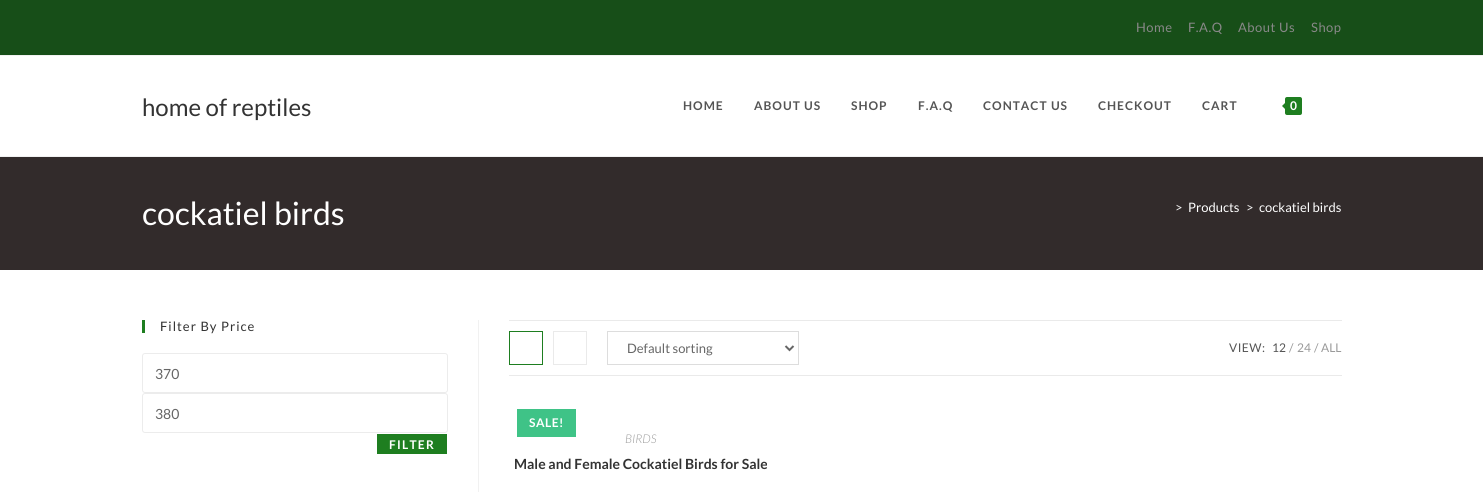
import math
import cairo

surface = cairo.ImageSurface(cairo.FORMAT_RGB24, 1483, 492)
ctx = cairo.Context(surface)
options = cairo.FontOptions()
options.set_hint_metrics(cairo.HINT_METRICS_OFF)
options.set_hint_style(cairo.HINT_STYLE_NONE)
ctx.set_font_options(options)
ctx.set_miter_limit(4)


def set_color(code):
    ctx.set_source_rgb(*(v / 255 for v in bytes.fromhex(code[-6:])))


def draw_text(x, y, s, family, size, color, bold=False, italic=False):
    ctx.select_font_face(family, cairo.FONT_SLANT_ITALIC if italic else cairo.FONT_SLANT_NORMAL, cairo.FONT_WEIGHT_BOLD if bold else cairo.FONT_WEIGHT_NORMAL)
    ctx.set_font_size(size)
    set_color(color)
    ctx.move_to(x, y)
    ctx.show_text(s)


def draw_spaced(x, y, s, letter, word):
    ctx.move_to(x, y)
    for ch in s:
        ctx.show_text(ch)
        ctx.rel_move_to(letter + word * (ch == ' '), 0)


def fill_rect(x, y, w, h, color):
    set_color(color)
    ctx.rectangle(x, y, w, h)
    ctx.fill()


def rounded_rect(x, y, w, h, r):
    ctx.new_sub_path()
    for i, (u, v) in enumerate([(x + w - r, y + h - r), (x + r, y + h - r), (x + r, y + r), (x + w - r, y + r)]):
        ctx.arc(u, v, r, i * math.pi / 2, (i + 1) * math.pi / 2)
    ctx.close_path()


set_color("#ffffff")
ctx.paint()
fill_rect(0, 0, 1483, 55, "#174e18")
fill_rect(0, 55, 1483, 1, "#f1f1f1")
ctx.select_font_face("Lato")
ctx.set_font_size(13)
set_color("#888888")
draw_spaced(1136, 32, "Home", 0.5, 0)
draw_spaced(1188, 32, "F.A.Q", 0.5, 0)
draw_spaced(1238, 32, "About Us", 0.5, 0)
draw_spaced(1311, 32, "Shop", 0.5, 0)
fill_rect(0, 156, 1483, 1, "#f1f1f1")
draw_text(142, 116, "home of reptiles", "Lato", 24, "#333333")
ctx.select_font_face("Lato", cairo.FONT_SLANT_NORMAL, cairo.FONT_WEIGHT_BOLD)
ctx.set_font_size(12)
set_color("#555555")
draw_spaced(683, 110, "HOME", 1, 0)
draw_spaced(754, 110, "ABOUT US", 1, 0)
draw_spaced(851, 110, "SHOP", 1, 0)
draw_spaced(918, 110, "F.A.Q", 1, 0)
draw_spaced(983, 110, "CONTACT US", 1, 0)
draw_spaced(1098, 110, "CHECKOUT", 1, 0)
draw_spaced(1202, 110, "CART", 1, 0)
set_color("#1e7e20")
rounded_rect(1285, 97, 17, 18, 2)
ctx.fill()
ctx.new_path()
ctx.move_to(1287, 101)
ctx.line_to(1287, 111)
ctx.line_to(1282, 106)
ctx.close_path()
ctx.fill()
draw_text(1290, 110, "0", "Lato", 12, "#ffffff", bold=True)
fill_rect(0, 157, 1483, 113, "#322b2b")
draw_text(142, 225, "cockatiel birds", "Lato", 32, "#ffffff")
draw_text(1175, 212, ">", "Lato", 13, "#efefef")
draw_text(1188, 212, "Products", "Lato", 13, "#ffffff")
draw_text(1246, 212, ">", "Lato", 13, "#efefef")
draw_text(1259, 212, "cockatiel birds", "Lato", 13, "#ffffff")
fill_rect(142, 320, 3, 13, "#1e7e20")
set_color("#333333")
draw_spaced(160, 331, "Filter By Price", 1, 0)
rounded_rect(142.5, 353.5, 305, 39, 2.5)
set_color("#ececec")
ctx.set_line_width(1)
ctx.stroke()
draw_text(155, 379, "370", "Lato", 14, "#666666")
rounded_rect(142.5, 393.5, 305, 39, 2.5)
set_color("#ececec")
ctx.stroke()
draw_text(155, 419, "380", "Lato", 14, "#666666")
fill_rect(377, 434, 70, 20, "#1e7e20")
ctx.select_font_face("Lato", cairo.FONT_SLANT_NORMAL, cairo.FONT_WEIGHT_BOLD)
ctx.set_font_size(12)
set_color("#ffffff")
draw_spaced(389, 449, "FILTER", 1.25, 0)
fill_rect(478, 320, 1, 172, "#f1f1f1")
fill_rect(509, 320, 833, 1, "#eaeaea")
fill_rect(509, 375, 833, 1, "#eaeaea")
ctx.rectangle(509.5, 331.5, 33, 33)
set_color("#1e7e20")
ctx.stroke()
ctx.rectangle(553.5, 331.5, 33, 33)
set_color("#eaeaea")
ctx.stroke()
ctx.rectangle(607.5, 331.5, 191, 33)
set_color("#dddddd")
ctx.stroke()
ctx.new_path()
ctx.move_to(785.5, 346)
ctx.line_to(789.5, 350)
ctx.line_to(793.5, 346)
set_color("#666666")
ctx.set_line_width(2)
ctx.stroke()
draw_text(627, 353, "Default sorting", "Lato", 13, "#666666")
ctx.set_font_size(12)
set_color("#555555")
draw_spaced(1229, 352, "VIEW:", 0.5, 0)
draw_text(1272, 352, "12", "Lato", 12, "#555555")
draw_text(1289, 352, "/", "Lato", 12, "#999999")
draw_text(1297, 352, "24", "Lato", 12, "#999999")
draw_text(1314, 352, "/", "Lato", 12, "#999999")
draw_text(1321, 352, "ALL", "Lato", 12, "#999999")
fill_rect(517, 409, 59, 28, "#3fc387")
ctx.select_font_face("Lato", cairo.FONT_SLANT_NORMAL, cairo.FONT_WEIGHT_BOLD)
set_color("#ffffff")
draw_spaced(529, 427, "SALE!", 0.5, 0)
draw_text(625, 443, "BIRDS", "Lato Light", 12, "#999999", italic=True)
draw_text(514, 469, "Male and Female Cockatiel Birds for Sale", "Lato", 14, "#333333", bold=True)
surface.write_to_png("output.png")
